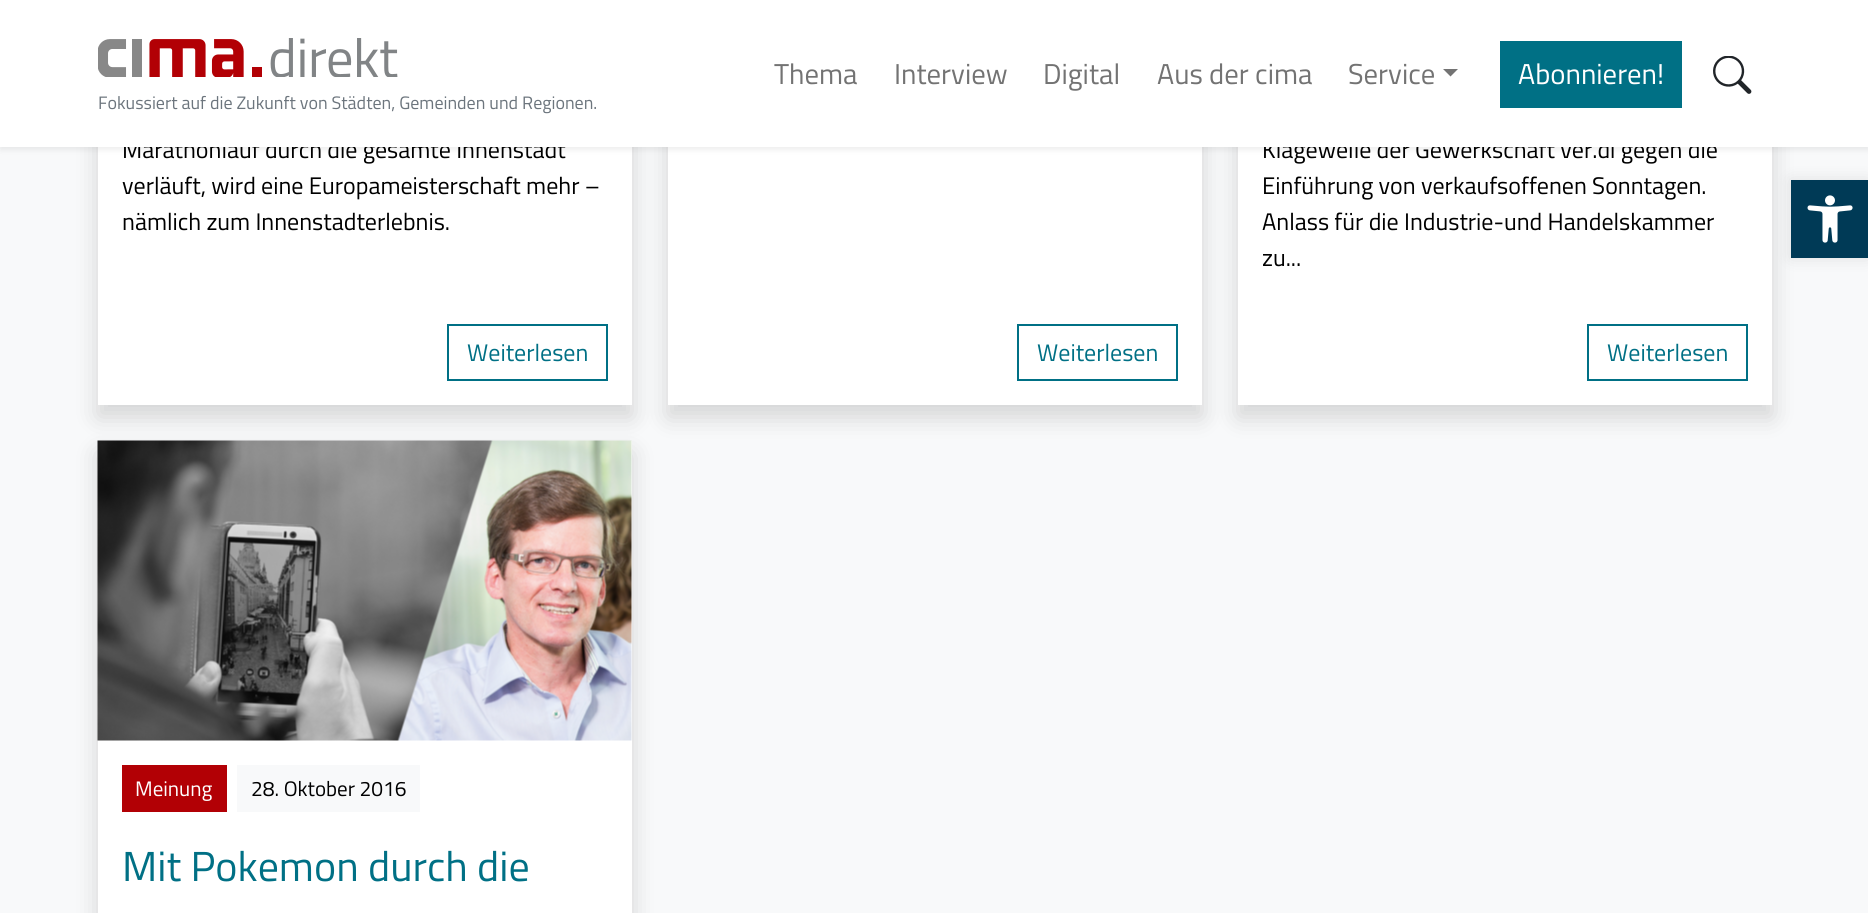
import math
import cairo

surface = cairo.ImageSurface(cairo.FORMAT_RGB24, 1868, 913)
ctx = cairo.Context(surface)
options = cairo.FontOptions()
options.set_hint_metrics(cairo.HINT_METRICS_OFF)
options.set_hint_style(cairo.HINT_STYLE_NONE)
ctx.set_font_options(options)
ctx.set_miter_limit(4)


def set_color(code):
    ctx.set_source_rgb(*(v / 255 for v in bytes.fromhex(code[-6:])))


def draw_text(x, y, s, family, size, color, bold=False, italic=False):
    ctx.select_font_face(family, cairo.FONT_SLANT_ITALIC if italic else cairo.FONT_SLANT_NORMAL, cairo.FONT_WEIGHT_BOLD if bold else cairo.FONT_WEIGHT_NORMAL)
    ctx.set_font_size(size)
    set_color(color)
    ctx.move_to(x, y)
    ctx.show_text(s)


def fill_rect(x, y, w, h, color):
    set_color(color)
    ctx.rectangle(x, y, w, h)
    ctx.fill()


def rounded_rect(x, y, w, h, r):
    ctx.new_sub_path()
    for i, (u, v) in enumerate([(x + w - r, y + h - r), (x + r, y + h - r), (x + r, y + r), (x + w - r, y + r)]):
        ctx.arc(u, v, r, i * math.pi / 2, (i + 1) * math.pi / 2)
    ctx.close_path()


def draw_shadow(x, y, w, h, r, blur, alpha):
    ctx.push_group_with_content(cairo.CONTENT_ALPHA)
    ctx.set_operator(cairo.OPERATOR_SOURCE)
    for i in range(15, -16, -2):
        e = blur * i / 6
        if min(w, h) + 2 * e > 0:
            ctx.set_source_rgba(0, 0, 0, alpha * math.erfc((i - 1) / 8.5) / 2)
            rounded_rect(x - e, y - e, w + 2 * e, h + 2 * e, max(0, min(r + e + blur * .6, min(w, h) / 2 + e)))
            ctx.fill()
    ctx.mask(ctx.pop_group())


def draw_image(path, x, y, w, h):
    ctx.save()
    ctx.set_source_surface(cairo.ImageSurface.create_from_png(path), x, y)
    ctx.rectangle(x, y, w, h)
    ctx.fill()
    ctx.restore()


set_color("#f8f9fa")
ctx.paint()
set_color("#000000")
draw_shadow(98, -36, 534, 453, 0, 12, 0.15)
fill_rect(98, 147, 534, 258, "#ffffff")
set_color("#000000")
draw_shadow(668, -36, 534, 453, 0, 12, 0.15)
fill_rect(668, 147, 534, 258, "#ffffff")
set_color("#000000")
draw_shadow(1238, -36, 534, 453, 0, 12, 0.15)
fill_rect(1238, 147, 534, 258, "#ffffff")
set_color("#000000")
draw_shadow(0, 3, 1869, 147, 0, 3, 0.07)
draw_text(122, 158, "Marathonlauf durch die gesamte Innenstadt", "Titillium Web", 24, "#000000")
draw_text(1262, 158, "Klagewelle der Gewerkschaft ver.di gegen die", "Titillium Web", 24, "#000000")
fill_rect(0, 0, 1868, 147, "#ffffff")
draw_text(774, 84, "Thema", "Titillium Web", 28.75, "#737373")
draw_text(894, 84, "Interview", "Titillium Web", 28.75, "#737373")
draw_text(1043, 84, "Digital", "Titillium Web", 28.75, "#737373")
draw_text(1157, 84, "Aus der cima", "Titillium Web", 28.75, "#737373")
draw_text(1348, 84, "Service", "Titillium Web", 28.75, "#737373")
ctx.new_path()
ctx.move_to(1443, 69)
ctx.line_to(1458, 69)
ctx.line_to(1450.5, 76.5)
ctx.close_path()
ctx.fill()
fill_rect(1500, 41, 182, 67, "#007085")
draw_text(1518, 84, "Abonnieren!", "Titillium Web", 28.75, "#ffffff")
draw_image("assets/img1.png", 1713, 56, 39, 38)
draw_image("assets/img2.png", 98, 38, 300, 39)
draw_text(98, 109, "Fokussiert auf die Zukunft von Städten, Gemeinden und Regionen.", "Titillium Web", 18, "#6c757d")
draw_text(122, 194, "verläuft, wird eine Europameisterschaft mehr –", "Titillium Web", 24, "#000000")
draw_text(122, 230, "nämlich zum Innenstadterlebnis.", "Titillium Web", 24, "#000000")
ctx.rectangle(448, 325, 159, 55)
set_color("#007085")
ctx.stroke()
draw_text(467, 361, "Weiterlesen", "Titillium Web", 24, "#007085")
ctx.rectangle(1018, 325, 159, 55)
ctx.stroke()
draw_text(1037, 361, "Weiterlesen", "Titillium Web", 24, "#007085")
draw_text(1262, 194, "Einführung von verkaufsoffenen Sonntagen.", "Titillium Web", 24, "#000000")
draw_text(1262, 230, "Anlass für die Industrie-und Handelskammer", "Titillium Web", 24, "#000000")
draw_text(1262, 266, "zu...", "Titillium Web", 24, "#000000")
ctx.rectangle(1588, 325, 159, 55)
set_color("#007085")
ctx.stroke()
draw_text(1607, 361, "Weiterlesen", "Titillium Web", 24, "#007085")
set_color("#000000")
draw_shadow(98, 453, 534, 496, 0, 12, 0.15)
fill_rect(98, 441, 534, 472, "#ffffff")
draw_image("assets/img3.png", 97, 440, 535, 301)
fill_rect(122, 765, 105, 47, "#b20005")
draw_text(135, 796, "Meinung", "Titillium Web", 21, "#ffffff")
fill_rect(237, 765, 183, 47, "#f8f9fa")
draw_text(251, 796, "28. Oktober 2016", "Titillium Web", 21, "#000000")
draw_text(122, 881, "Mit Pokemon durch die", "Titillium Web", 42, "#007085")
set_color("#000000")
draw_shadow(1791, 180, 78, 78, 0, 7.5, 0.1)
fill_rect(1791, 180, 77, 78, "#003a56")
draw_image("assets/img4.png", 1807, 195, 46, 48)
surface.write_to_png("output.png")
